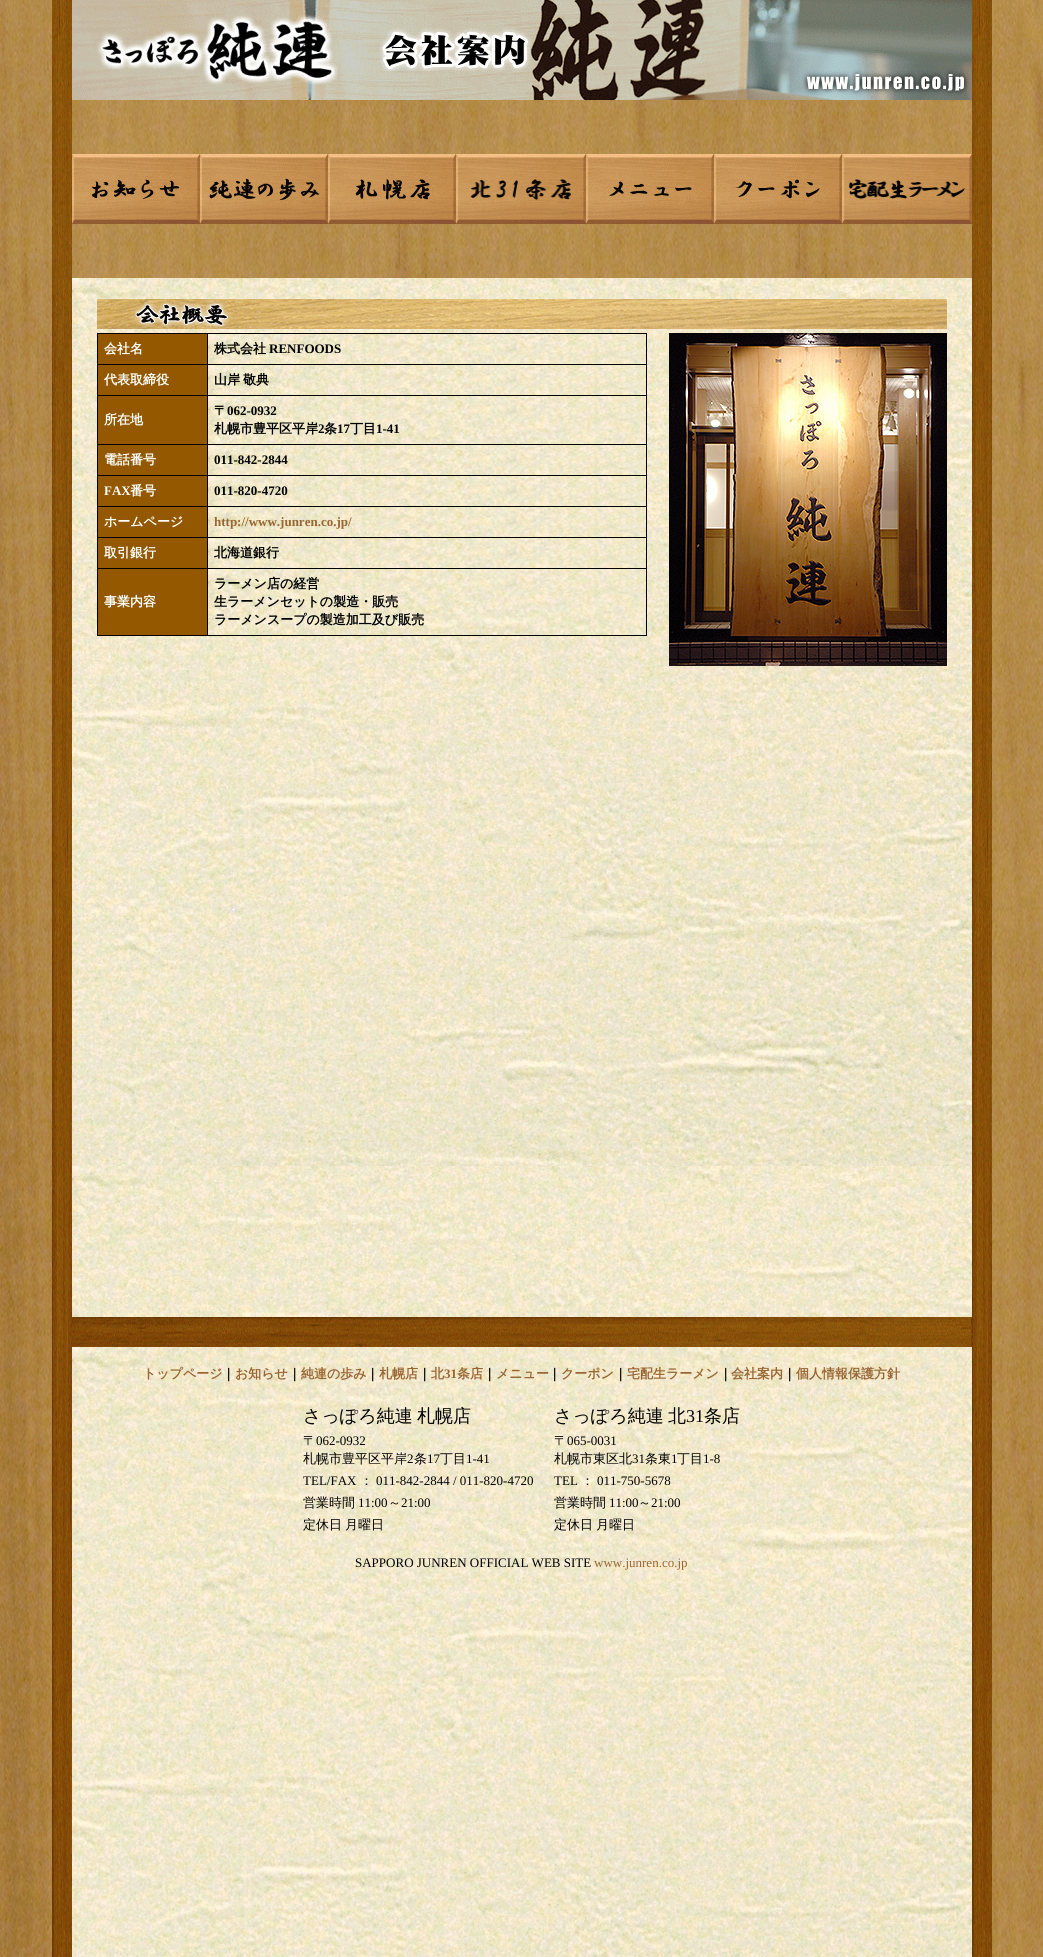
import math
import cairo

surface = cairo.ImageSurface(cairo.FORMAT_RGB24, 1043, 1957)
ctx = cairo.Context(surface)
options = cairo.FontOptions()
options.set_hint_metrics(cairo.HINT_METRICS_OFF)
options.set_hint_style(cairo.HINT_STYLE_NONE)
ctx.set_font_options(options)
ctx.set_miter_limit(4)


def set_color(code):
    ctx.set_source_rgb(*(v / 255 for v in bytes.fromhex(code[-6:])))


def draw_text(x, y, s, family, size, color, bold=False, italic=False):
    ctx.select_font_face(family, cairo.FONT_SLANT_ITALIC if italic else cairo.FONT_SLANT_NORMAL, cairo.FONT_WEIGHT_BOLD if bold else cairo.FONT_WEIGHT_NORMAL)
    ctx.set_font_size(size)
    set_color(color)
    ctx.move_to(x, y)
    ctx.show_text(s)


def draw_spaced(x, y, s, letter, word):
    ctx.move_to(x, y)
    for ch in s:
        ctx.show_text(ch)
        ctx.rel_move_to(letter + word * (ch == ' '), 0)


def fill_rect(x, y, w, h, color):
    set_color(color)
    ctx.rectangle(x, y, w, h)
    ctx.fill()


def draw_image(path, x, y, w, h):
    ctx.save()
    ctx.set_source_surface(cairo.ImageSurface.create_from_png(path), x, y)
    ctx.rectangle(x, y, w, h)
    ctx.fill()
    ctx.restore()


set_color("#ffffff")
ctx.paint()
draw_image("assets/img1.png", 0, 0, 1043, 1957)
draw_image("assets/img2.png", 52, 0, 20, 1957)
draw_image("assets/img3.png", 72, 0, 900, 100)
draw_image("assets/img2.png", 972, 0, 20, 1957)
draw_image("assets/img4.png", 72, 154, 128, 70)
draw_image("assets/img5.png", 200, 154, 128, 70)
draw_image("assets/img6.png", 328, 154, 128, 70)
draw_image("assets/img7.png", 456, 154, 130, 70)
draw_image("assets/img8.png", 586, 154, 128, 70)
draw_image("assets/img9.png", 714, 154, 128, 70)
draw_image("assets/img10.png", 842, 154, 130, 70)
draw_image("assets/img11.png", 72, 278, 900, 1039)
draw_image("assets/img12.png", 97, 299, 850, 30)
fill_rect(97, 333, 550, 303, "#000000")
fill_rect(98, 334, 109, 30, "#935800")
draw_text(104, 353, "会社名", "WenQuanYi Zen Hei", 13, "#ffffff", bold=True)
draw_image("assets/img13.png", 208, 334, 438, 30)
draw_text(214, 353, "株式会社", "WenQuanYi Zen Hei", 13, "#000000", bold=True)
draw_text(269, 353, "RENFOODS", "Liberation Serif", 13, "#000000", bold=True)
fill_rect(98, 365, 109, 30, "#935800")
draw_text(104, 384, "代表取締役", "WenQuanYi Zen Hei", 13, "#ffffff", bold=True)
draw_image("assets/img13.png", 208, 365, 438, 30)
set_color("#000000")
draw_spaced(214, 384, "山岸 敬典", 0, -1)
fill_rect(98, 396, 109, 48, "#935800")
draw_text(104, 424, "所在地", "WenQuanYi Zen Hei", 13, "#ffffff", bold=True)
draw_image("assets/img14.png", 208, 396, 438, 48)
draw_text(214, 415, "〒", "WenQuanYi Zen Hei", 13, "#000000", bold=True)
draw_text(227, 415, "062-0932", "Liberation Serif", 13, "#000000", bold=True)
draw_text(214, 433, "札幌市豊平区平岸", "WenQuanYi Zen Hei", 13, "#000000", bold=True)
draw_text(318, 433, "2", "Liberation Serif", 13, "#000000", bold=True)
draw_text(324, 433, "条", "WenQuanYi Zen Hei", 13, "#000000", bold=True)
draw_text(337, 433, "17", "Liberation Serif", 13, "#000000", bold=True)
draw_text(350, 433, "丁目", "WenQuanYi Zen Hei", 13, "#000000", bold=True)
draw_text(376, 433, "1-41", "Liberation Serif", 13, "#000000", bold=True)
fill_rect(98, 445, 109, 30, "#935800")
draw_text(104, 464, "電話番号", "WenQuanYi Zen Hei", 13, "#ffffff", bold=True)
draw_image("assets/img13.png", 208, 445, 438, 30)
draw_text(214, 464, "011-842-2844", "Liberation Serif", 13, "#000000", bold=True)
fill_rect(98, 476, 109, 30, "#935800")
draw_text(104, 495, "FAX", "Liberation Serif", 13, "#ffffff", bold=True)
draw_text(130, 495, "番号", "WenQuanYi Zen Hei", 13, "#ffffff", bold=True)
draw_image("assets/img13.png", 208, 476, 438, 30)
draw_text(214, 495, "011-820-4720", "Liberation Serif", 13, "#000000", bold=True)
fill_rect(98, 507, 109, 30, "#935800")
draw_text(104, 526, "ホームページ", "WenQuanYi Zen Hei", 13, "#ffffff", bold=True)
draw_image("assets/img13.png", 208, 507, 438, 30)
draw_text(214, 526, "http://www.junren.co.jp/", "Liberation Serif", 13, "#996633", bold=True)
fill_rect(98, 538, 109, 30, "#935800")
draw_text(104, 557, "取引銀行", "WenQuanYi Zen Hei", 13, "#ffffff", bold=True)
draw_image("assets/img13.png", 208, 538, 438, 30)
draw_text(214, 557, "北海道銀行", "WenQuanYi Zen Hei", 13, "#000000", bold=True)
fill_rect(98, 569, 109, 66, "#935800")
draw_text(104, 606, "事業内容", "WenQuanYi Zen Hei", 13, "#ffffff", bold=True)
draw_image("assets/img15.png", 208, 569, 438, 66)
draw_text(214, 588, "ラーメン店の経営", "WenQuanYi Zen Hei", 13, "#000000", bold=True)
draw_text(214, 606, "生ラーメンセットの製造・販売", "WenQuanYi Zen Hei", 13, "#000000", bold=True)
draw_text(214, 624, "ラーメンスープの製造加工及び販売", "WenQuanYi Zen Hei", 13, "#000000", bold=True)
draw_image("assets/img16.png", 669, 333, 278, 333)
draw_image("assets/img17.png", 72, 1317, 900, 30)
draw_image("assets/img18.png", 72, 1347, 900, 610)
draw_text(143, 1378, "トップページ", "WenQuanYi Zen Hei", 13, "#996633", bold=True)
draw_text(222, 1378, "｜", "WenQuanYi Zen Hei", 13, "#000000", bold=True)
draw_text(235, 1378, "お知らせ", "WenQuanYi Zen Hei", 13, "#996633", bold=True)
draw_text(288, 1378, "｜", "WenQuanYi Zen Hei", 13, "#000000", bold=True)
draw_text(301, 1378, "純連の歩み", "WenQuanYi Zen Hei", 13, "#996633", bold=True)
draw_text(366, 1378, "｜", "WenQuanYi Zen Hei", 13, "#000000", bold=True)
draw_text(379, 1378, "札幌店", "WenQuanYi Zen Hei", 13, "#996633", bold=True)
draw_text(418, 1378, "｜", "WenQuanYi Zen Hei", 13, "#000000", bold=True)
draw_text(431, 1378, "北", "WenQuanYi Zen Hei", 13, "#996633", bold=True)
draw_text(444, 1378, "31", "Liberation Serif", 13, "#996633", bold=True)
draw_text(457, 1378, "条店", "WenQuanYi Zen Hei", 13, "#996633", bold=True)
draw_text(483, 1378, "｜", "WenQuanYi Zen Hei", 13, "#000000", bold=True)
draw_text(496, 1378, "メニュー", "WenQuanYi Zen Hei", 13, "#996633", bold=True)
draw_text(548, 1378, "｜", "WenQuanYi Zen Hei", 13, "#000000", bold=True)
draw_text(561, 1378, "クーポン", "WenQuanYi Zen Hei", 13, "#996633", bold=True)
draw_text(614, 1378, "｜", "WenQuanYi Zen Hei", 13, "#000000", bold=True)
draw_text(627, 1378, "宅配生ラーメン", "WenQuanYi Zen Hei", 13, "#996633", bold=True)
draw_text(719, 1378, "｜", "WenQuanYi Zen Hei", 13, "#000000", bold=True)
draw_text(731, 1378, "会社案内", "WenQuanYi Zen Hei", 13, "#996633", bold=True)
draw_text(783, 1378, "｜", "WenQuanYi Zen Hei", 13, "#000000", bold=True)
draw_text(796, 1378, "個人情報保護方針", "WenQuanYi Zen Hei", 13, "#996633", bold=True)
ctx.select_font_face("WenQuanYi Zen Hei Medium")
ctx.set_font_size(18)
set_color("#000000")
draw_spaced(303, 1422, "さっぽろ純連 札幌店", 0, -1)
draw_spaced(554, 1422, "さっぽろ純連 北", 0, -1)
draw_text(686, 1422, "31", "Liberation Serif", 18, "#000000")
draw_text(704, 1422, "条店", "WenQuanYi Zen Hei Medium", 18, "#000000")
draw_text(303, 1445, "〒", "WenQuanYi Zen Hei Medium", 13, "#000000")
draw_text(316, 1445, "062-0932", "Liberation Serif", 13, "#000000")
draw_text(303, 1463, "札幌市豊平区平岸", "WenQuanYi Zen Hei Medium", 13, "#000000")
draw_text(407, 1463, "2", "Liberation Serif", 13, "#000000")
draw_text(414, 1463, "条", "WenQuanYi Zen Hei Medium", 13, "#000000")
draw_text(427, 1463, "17", "Liberation Serif", 13, "#000000")
draw_text(440, 1463, "丁目", "WenQuanYi Zen Hei Medium", 13, "#000000")
draw_text(466, 1463, "1-41", "Liberation Serif", 13, "#000000")
draw_text(554, 1445, "〒", "WenQuanYi Zen Hei Medium", 13, "#000000")
draw_text(567, 1445, "065-0031", "Liberation Serif", 13, "#000000")
draw_text(554, 1463, "札幌市東区北", "WenQuanYi Zen Hei Medium", 13, "#000000")
draw_text(632, 1463, "31", "Liberation Serif", 13, "#000000")
draw_text(645, 1463, "条東", "WenQuanYi Zen Hei Medium", 13, "#000000")
draw_text(671, 1463, "1", "Liberation Serif", 13, "#000000")
draw_text(677, 1463, "丁目", "WenQuanYi Zen Hei Medium", 13, "#000000")
draw_text(703, 1463, "1-8", "Liberation Serif", 13, "#000000")
draw_text(303, 1485, "TEL/FAX", "Liberation Serif", 13, "#000000")
draw_text(360, 1485, "：", "WenQuanYi Zen Hei Medium", 13, "#000000")
draw_text(376, 1485, "011-842-2844 / 011-820-4720", "Liberation Serif", 13, "#000000")
draw_text(554, 1485, "TEL", "Liberation Serif", 13, "#000000")
draw_text(581, 1485, "：", "WenQuanYi Zen Hei Medium", 13, "#000000")
draw_text(597, 1485, "011-750-5678", "Liberation Serif", 13, "#000000")
draw_text(303, 1507, "営業時間", "WenQuanYi Zen Hei Medium", 13, "#000000")
draw_text(358, 1507, "11:00", "Liberation Serif", 13, "#000000")
draw_text(388, 1507, "～", "WenQuanYi Zen Hei Medium", 13, "#000000")
draw_text(401, 1507, "21:00", "Liberation Serif", 13, "#000000")
draw_text(554, 1507, "営業時間", "WenQuanYi Zen Hei Medium", 13, "#000000")
draw_text(609, 1507, "11:00", "Liberation Serif", 13, "#000000")
draw_text(638, 1507, "～", "WenQuanYi Zen Hei Medium", 13, "#000000")
draw_text(651, 1507, "21:00", "Liberation Serif", 13, "#000000")
ctx.select_font_face("WenQuanYi Zen Hei Medium")
draw_spaced(303, 1529, "定休日 月曜日", 0, -1)
draw_spaced(554, 1529, "定休日 月曜日", 0, -1)
draw_text(355, 1567, "SAPPORO JUNREN OFFICIAL WEB SITE", "Liberation Serif", 13, "#000000")
draw_text(594, 1567, "www.junren.co.jp", "Liberation Serif", 13, "#996633")
surface.write_to_png("output.png")
